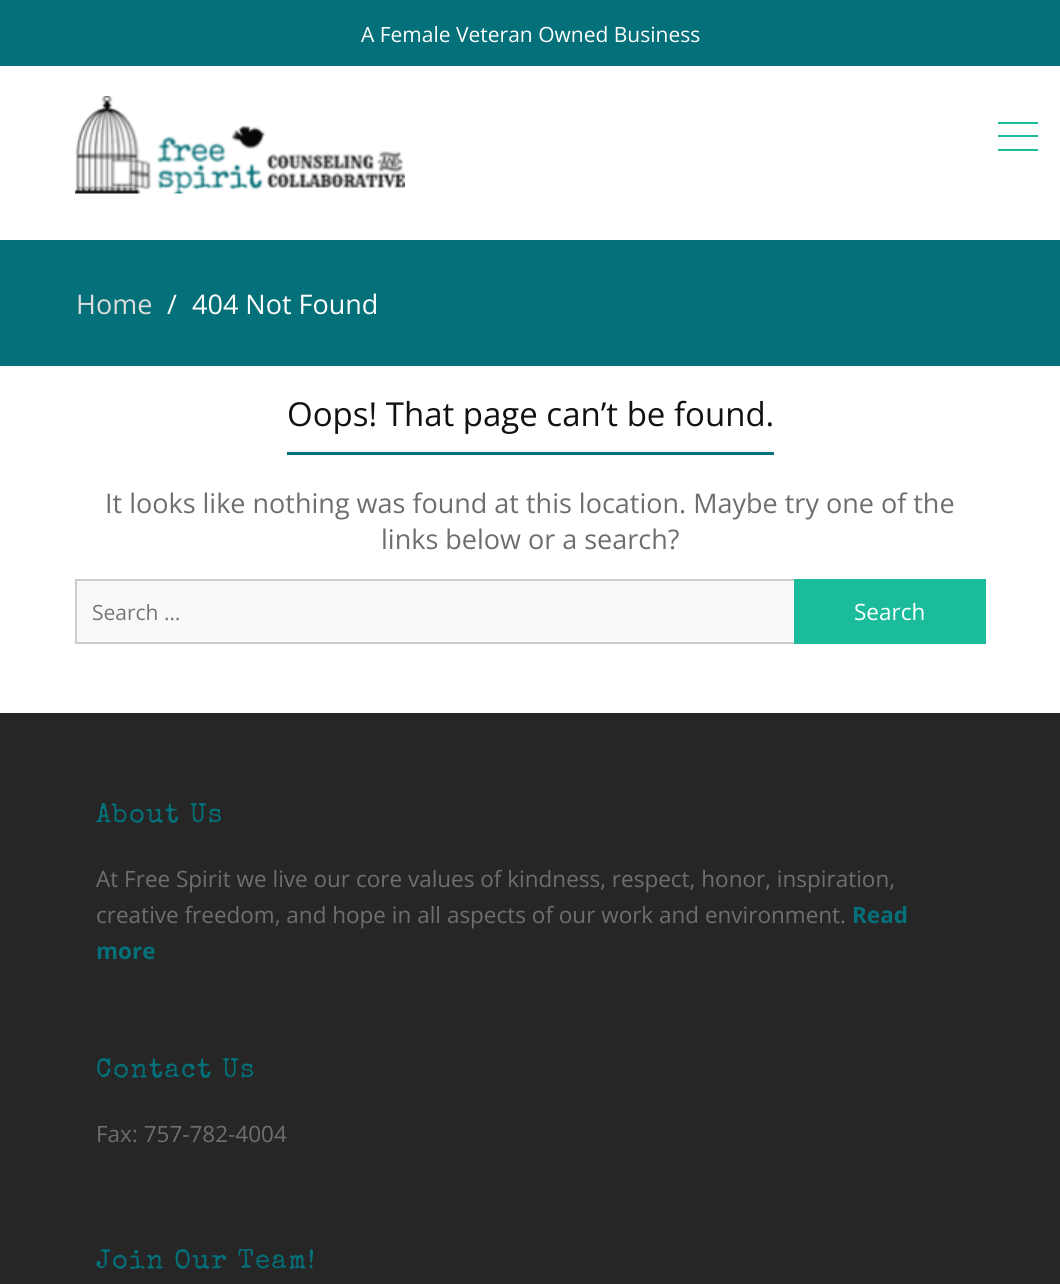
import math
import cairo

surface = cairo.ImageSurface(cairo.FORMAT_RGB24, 1060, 1284)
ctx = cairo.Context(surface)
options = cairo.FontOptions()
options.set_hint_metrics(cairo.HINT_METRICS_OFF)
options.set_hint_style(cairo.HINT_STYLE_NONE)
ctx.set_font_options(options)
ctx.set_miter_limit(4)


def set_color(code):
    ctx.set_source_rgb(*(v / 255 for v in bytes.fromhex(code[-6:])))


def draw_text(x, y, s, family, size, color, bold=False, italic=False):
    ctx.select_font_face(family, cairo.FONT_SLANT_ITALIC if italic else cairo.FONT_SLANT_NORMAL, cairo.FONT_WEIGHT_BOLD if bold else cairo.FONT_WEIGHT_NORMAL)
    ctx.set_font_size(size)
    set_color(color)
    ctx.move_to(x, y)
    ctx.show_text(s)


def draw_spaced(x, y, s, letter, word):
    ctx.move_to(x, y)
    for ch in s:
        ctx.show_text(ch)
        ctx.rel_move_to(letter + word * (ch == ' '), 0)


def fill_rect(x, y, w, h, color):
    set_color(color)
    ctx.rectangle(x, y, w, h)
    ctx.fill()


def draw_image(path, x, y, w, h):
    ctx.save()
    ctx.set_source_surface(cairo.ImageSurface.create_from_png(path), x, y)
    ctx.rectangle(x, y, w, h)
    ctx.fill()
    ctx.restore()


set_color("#ffffff")
ctx.paint()
fill_rect(0, 0, 1060, 66, "#047079")
draw_text(361, 42, "A Female Veteran Owned Business", "Open Sans", 21, "#ffffff")
draw_image("assets/img1.png", 75, 96, 330, 98)
fill_rect(998, 122, 40, 2, "#1bbc9b")
fill_rect(998, 135, 40, 2, "#1bbc9b")
fill_rect(998, 149, 40, 2, "#1bbc9b")
fill_rect(0, 240, 1060, 126, "#047079")
draw_text(76, 314, "Home", "Open Sans", 27, "#dddddd")
draw_text(167, 314, "/", "Open Sans", 27, "#ffffff")
draw_text(192, 314, "404 Not Found", "Open Sans", 27, "#ffffff")
fill_rect(287, 452, 487, 3, "#047079")
draw_text(287, 426, "Oops! That page can’t be found.", "Open Sans", 33, "#121212")
draw_text(105, 513, "It looks like nothing was found at this location. Maybe try one of the", "Open Sans", 27, "#6e6e6e")
draw_text(381, 549, "links below or a search?", "Open Sans", 27, "#6e6e6e")
fill_rect(77, 581, 717, 61, "#f9f9f9")
ctx.rectangle(76, 580, 909, 63)
set_color("#cccccc")
ctx.stroke()
draw_text(92, 620, "Search …", "Open Sans", 21, "#757575")
fill_rect(794, 579, 192, 65, "#1bbc9b")
draw_text(854, 620, "Search", "Open Sans", 22.5, "#ffffff")
fill_rect(0, 713, 1060, 571, "#262626")
ctx.select_font_face("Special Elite")
ctx.set_font_size(27)
set_color("#047079")
draw_spaced(96, 822, "About Us", 1.5, 0)
draw_text(96, 887, "At Free Spirit we live our core values of kindness, respect, honor, inspiration,", "Open Sans", 22.5, "#6e6e6e")
draw_text(96, 923, "creative freedom, and hope in all aspects of our work and environment.", "Open Sans", 22.5, "#6e6e6e")
draw_text(852, 923, "Read", "Open Sans", 22.5, "#047079", bold=True)
draw_text(96, 959, "more", "Open Sans", 22.5, "#047079", bold=True)
ctx.select_font_face("Special Elite")
ctx.set_font_size(27)
draw_spaced(96, 1077, "Contact Us", 1.5, 0)
draw_text(96, 1142, "Fax: 757-782-4004", "Open Sans", 22.5, "#6e6e6e")
ctx.select_font_face("Special Elite")
ctx.set_font_size(27)
set_color("#047079")
draw_spaced(96, 1268, "Join Our Team!", 1.5, 0)
surface.write_to_png("output.png")
